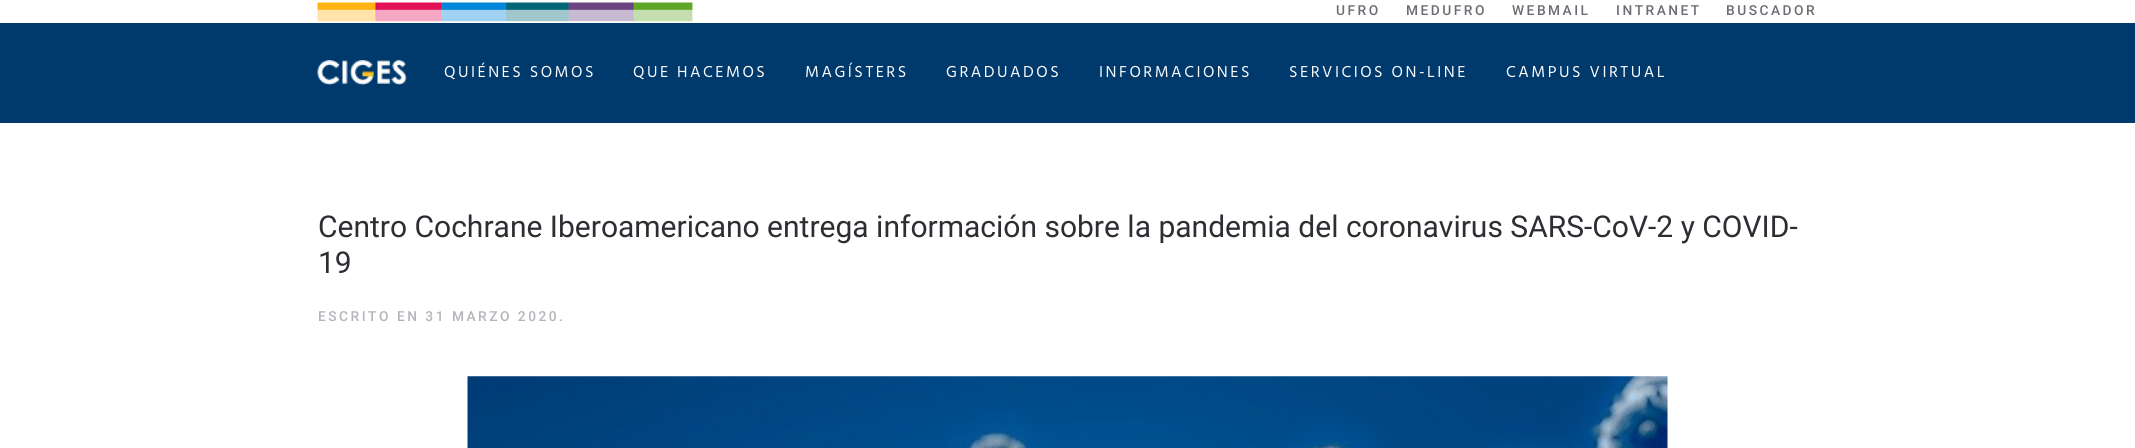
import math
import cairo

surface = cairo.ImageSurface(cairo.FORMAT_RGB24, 2135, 448)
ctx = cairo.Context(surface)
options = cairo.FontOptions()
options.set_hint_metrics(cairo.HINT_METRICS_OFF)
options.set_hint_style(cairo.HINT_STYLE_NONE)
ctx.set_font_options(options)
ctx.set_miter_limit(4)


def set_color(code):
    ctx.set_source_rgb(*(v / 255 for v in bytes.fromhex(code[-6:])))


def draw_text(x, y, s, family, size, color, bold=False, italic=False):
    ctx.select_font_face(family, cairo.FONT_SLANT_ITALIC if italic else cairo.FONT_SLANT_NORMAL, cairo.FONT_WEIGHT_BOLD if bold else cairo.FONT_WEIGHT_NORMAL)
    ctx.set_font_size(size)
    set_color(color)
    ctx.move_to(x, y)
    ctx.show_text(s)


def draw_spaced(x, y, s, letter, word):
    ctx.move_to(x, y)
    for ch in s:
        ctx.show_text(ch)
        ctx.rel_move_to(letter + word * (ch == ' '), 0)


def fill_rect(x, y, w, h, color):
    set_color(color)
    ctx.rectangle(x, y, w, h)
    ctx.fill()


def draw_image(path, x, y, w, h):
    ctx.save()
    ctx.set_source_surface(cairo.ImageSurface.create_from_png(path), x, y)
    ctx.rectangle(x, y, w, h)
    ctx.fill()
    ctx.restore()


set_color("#ffffff")
ctx.paint()
draw_image("assets/img1.png", 317, 2, 376, 20)
ctx.select_font_face("Roboto Medium")
ctx.set_font_size(13.75)
set_color("#6c6d74")
draw_spaced(1336, 15, "UFRO", 2.5, 0)
draw_spaced(1406, 15, "MEDUFRO", 2.5, 0)
draw_spaced(1512, 15, "WEBMAIL", 2.5, 0)
draw_spaced(1616, 15, "INTRANET", 2.5, 0)
draw_spaced(1726, 15, "BUSCADOR", 2.5, 0)
fill_rect(0, 23, 2135, 100, "#00396c")
draw_image("assets/img2.png", 317, 60, 90, 25)
ctx.select_font_face("Hind")
ctx.set_font_size(16.25)
set_color("#fbfbfb")
draw_spaced(444, 77, "QUIÉNES SOMOS", 2.5, 0)
draw_spaced(633, 77, "QUE HACEMOS", 2.5, 0)
draw_spaced(805, 77, "MAGÍSTERS", 2.5, 0)
draw_spaced(946, 77, "GRADUADOS", 2.5, 0)
draw_spaced(1099, 77, "INFORMACIONES", 2.5, 0)
draw_spaced(1289, 77, "SERVICIOS ON-LINE", 2.5, 0)
draw_spaced(1506, 77, "CAMPUS VIRTUAL", 2.5, 0)
draw_text(318, 237, "Centro Cochrane Iberoamericano entrega información sobre la pandemia del coronavirus SARS-CoV-2 y COVID-", "Roboto", 30, "#2d2e33")
draw_text(318, 273, "19", "Roboto", 30, "#2d2e33")
ctx.select_font_face("Roboto Medium")
ctx.set_font_size(13.75)
set_color("#b4b5ba")
draw_spaced(318, 321, "ESCRITO EN 31 MARZO 2020.", 2.5, 0)
draw_image("assets/img3.png", 467, 376, 1201, 72)
surface.write_to_png("output.png")
